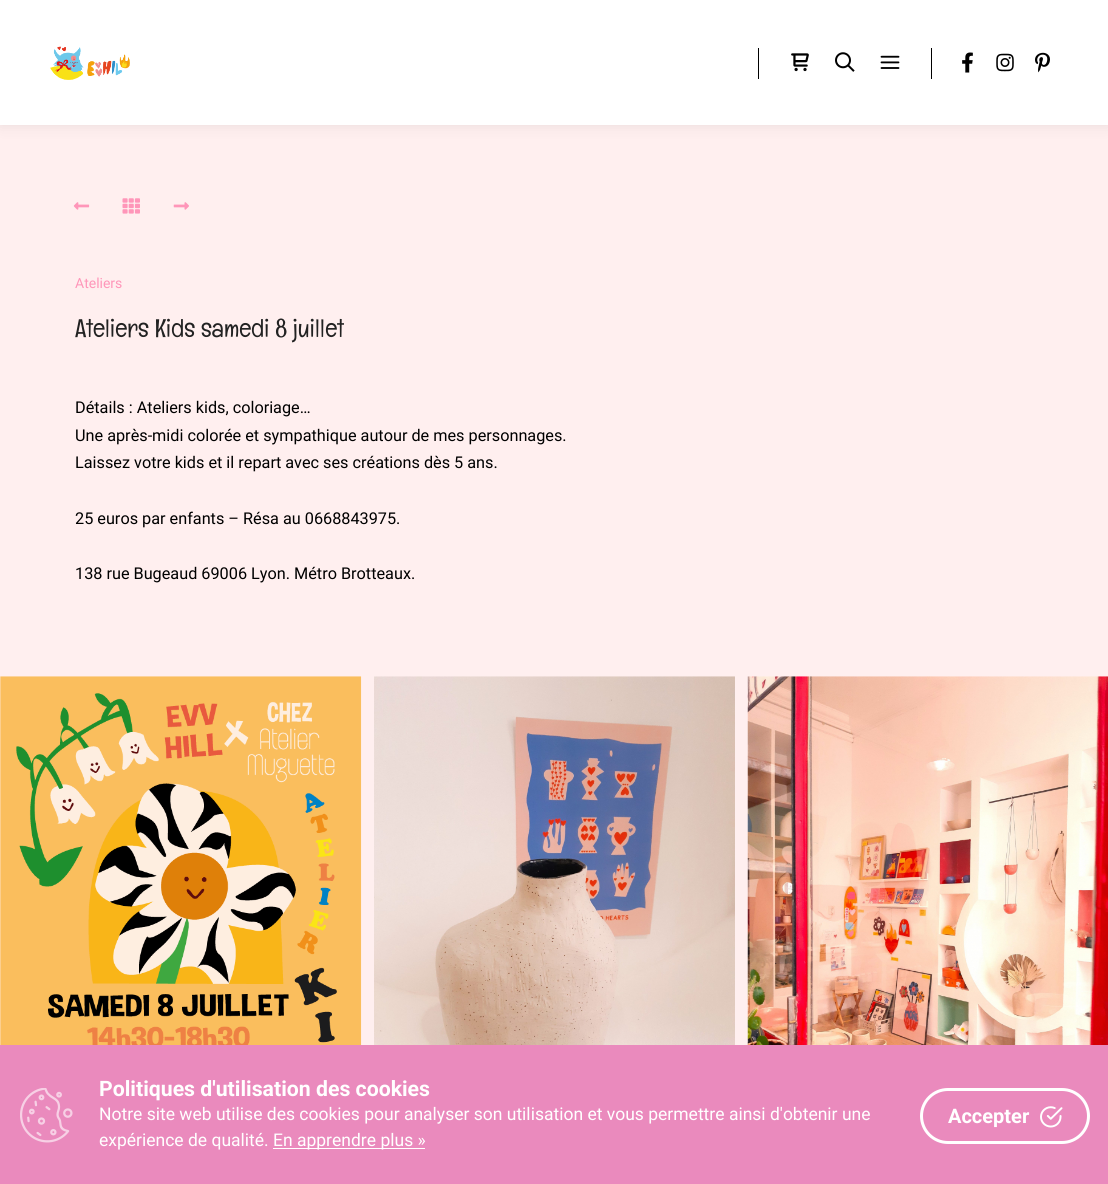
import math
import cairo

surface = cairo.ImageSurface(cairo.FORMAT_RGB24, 1108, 1184)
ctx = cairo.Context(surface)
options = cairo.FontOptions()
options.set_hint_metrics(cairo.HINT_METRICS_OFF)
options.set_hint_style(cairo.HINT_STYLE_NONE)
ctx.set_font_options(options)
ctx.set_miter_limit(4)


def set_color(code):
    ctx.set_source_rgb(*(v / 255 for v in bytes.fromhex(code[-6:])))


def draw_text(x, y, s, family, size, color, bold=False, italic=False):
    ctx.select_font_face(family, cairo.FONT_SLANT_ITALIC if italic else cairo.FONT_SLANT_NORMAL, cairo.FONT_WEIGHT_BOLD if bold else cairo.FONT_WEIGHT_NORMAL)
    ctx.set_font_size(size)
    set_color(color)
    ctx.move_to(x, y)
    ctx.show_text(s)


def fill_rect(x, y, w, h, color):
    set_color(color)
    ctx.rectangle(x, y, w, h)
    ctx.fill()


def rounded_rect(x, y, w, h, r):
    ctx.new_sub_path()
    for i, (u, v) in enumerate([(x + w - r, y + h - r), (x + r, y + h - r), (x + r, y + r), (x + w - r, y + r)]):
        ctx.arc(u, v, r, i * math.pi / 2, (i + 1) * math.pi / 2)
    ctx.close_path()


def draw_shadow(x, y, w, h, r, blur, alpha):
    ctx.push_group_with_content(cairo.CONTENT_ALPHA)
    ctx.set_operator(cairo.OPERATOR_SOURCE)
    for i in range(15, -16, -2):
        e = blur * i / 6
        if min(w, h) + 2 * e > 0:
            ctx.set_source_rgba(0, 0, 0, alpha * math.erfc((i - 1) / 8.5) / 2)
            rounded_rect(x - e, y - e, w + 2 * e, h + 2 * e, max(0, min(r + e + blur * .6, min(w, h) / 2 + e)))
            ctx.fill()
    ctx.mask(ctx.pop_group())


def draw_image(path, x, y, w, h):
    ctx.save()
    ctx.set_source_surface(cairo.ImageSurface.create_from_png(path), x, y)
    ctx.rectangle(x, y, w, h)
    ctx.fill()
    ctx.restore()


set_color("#ffefef")
ctx.paint()
set_color("#000000")
draw_shadow(0, 0, 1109, 125, 0, 7.5, 0.09)
fill_rect(0, 0, 1108, 125, "#ffffff")
draw_image("assets/img1.png", 50, 46, 80, 34)
fill_rect(758, 48, 1, 31, "#000000")
draw_image("assets/img2.png", 791, 53, 18, 19)
draw_image("assets/img3.png", 835, 52, 20, 20)
draw_image("assets/img4.png", 880, 55, 20, 14)
fill_rect(931, 48, 1, 31, "#000000")
draw_image("assets/img5.png", 962, 52, 11, 21)
draw_image("assets/img6.png", 996, 53, 18, 19)
draw_image("assets/img7.png", 1035, 52, 15, 21)
draw_image("assets/img8.png", 73, 202, 17, 8)
draw_image("assets/img9.png", 122, 198, 18, 16)
draw_image("assets/img10.png", 173, 202, 16, 8)
draw_text(75, 288, "Ateliers", "Roboto", 14, "#ff96b9")
draw_text(75, 337, "Ateliers Kids samedi 8 juillet", "Englebert", 25.5, "#222222")
draw_text(75, 413, "Détails : Ateliers kids, coloriage…", "Roboto", 16.25, "#000000")
draw_text(75, 441, "Une après-midi colorée et sympathique autour de mes personnages.", "Roboto", 16.25, "#000000")
draw_text(75, 468, "Laissez votre kids et il repart avec ses créations dès 5 ans.", "Roboto", 16.25, "#000000")
draw_text(75, 524, "25 euros par enfants – Résa au 0668843975.", "Roboto", 16.25, "#000000")
draw_text(75, 579, "138 rue Bugeaud 69006 Lyon. Métro Brotteaux.", "Roboto", 16.25, "#000000")
draw_image("assets/img11.png", 0, 676, 362, 369)
draw_image("assets/img12.png", 374, 676, 361, 369)
draw_image("assets/img13.png", 747, 676, 361, 369)
fill_rect(0, 1045, 1108, 139, "#ea8abd")
draw_image("assets/img14.png", 20, 1088, 53, 55)
draw_text(99, 1096, "Politiques d'utilisation des cookies", "Roboto", 21.25, "#ffffff", bold=True)
draw_text(99, 1120, "Notre site web utilise des cookies pour analyser son utilisation et vous permettre ainsi d'obtenir une", "Roboto", 17.5, "#ffffff")
draw_text(99, 1146, "expérience de qualité.", "Roboto", 17.5, "#ffffff")
fill_rect(273, 1148, 152, 1, "#ffffff")
draw_text(273, 1146, "En apprendre plus »", "Roboto", 17.5, "#ffffff")
rounded_rect(921.5, 1089.5, 167, 53, 26.5)
ctx.set_line_width(3)
ctx.stroke()
draw_text(948, 1123, "Accepter", "Roboto", 20, "#ffffff", bold=True)
draw_image("assets/img15.png", 1040, 1106, 23, 22)
surface.write_to_png("output.png")
